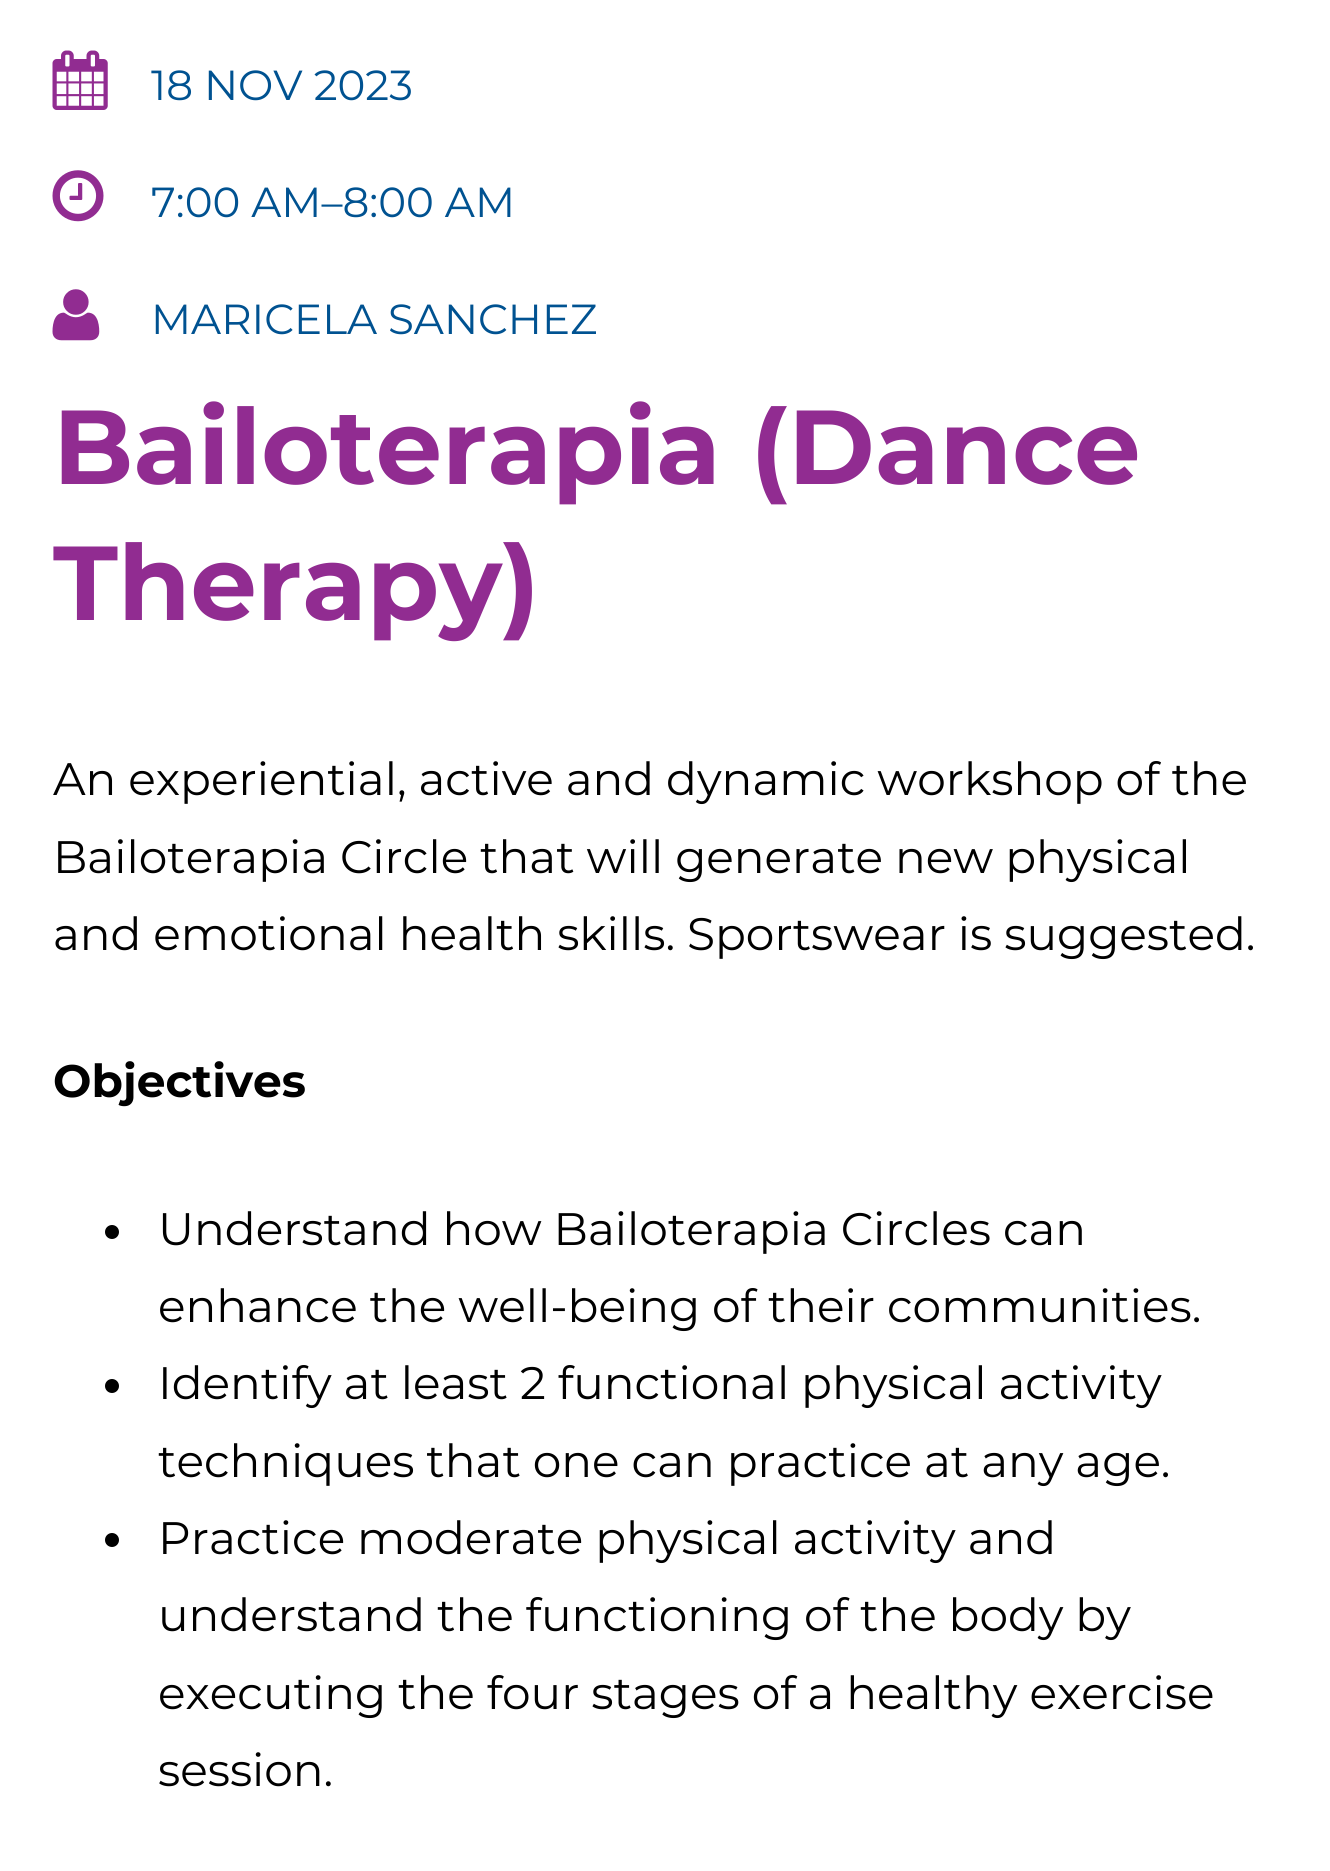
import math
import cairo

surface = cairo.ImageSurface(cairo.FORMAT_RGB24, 1330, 1871)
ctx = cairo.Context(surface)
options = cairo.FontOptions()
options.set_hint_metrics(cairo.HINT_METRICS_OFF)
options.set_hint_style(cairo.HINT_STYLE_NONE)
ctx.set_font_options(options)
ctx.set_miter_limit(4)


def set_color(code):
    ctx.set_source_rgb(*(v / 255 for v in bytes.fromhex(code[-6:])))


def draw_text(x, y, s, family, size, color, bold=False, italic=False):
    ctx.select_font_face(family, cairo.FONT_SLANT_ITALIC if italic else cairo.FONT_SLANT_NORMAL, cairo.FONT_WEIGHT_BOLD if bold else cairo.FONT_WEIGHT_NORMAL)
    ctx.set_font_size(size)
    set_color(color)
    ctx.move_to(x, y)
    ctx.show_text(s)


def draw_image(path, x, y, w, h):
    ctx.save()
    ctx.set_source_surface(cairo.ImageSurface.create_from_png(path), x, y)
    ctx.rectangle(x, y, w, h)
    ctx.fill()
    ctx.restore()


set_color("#ffffff")
ctx.paint()
draw_image("assets/img1.png", 52, 50, 56, 60)
draw_text(151, 100, "18 NOV 2023", "Montserrat", 42, "#005291")
draw_image("assets/img2.png", 52, 170, 52, 52)
draw_text(151, 217, "7:00 AM–8:00 AM", "Montserrat", 42, "#005291")
draw_image("assets/img3.png", 52, 289, 48, 52)
draw_text(151, 334, "MARICELA SANCHEZ", "Montserrat", 42, "#005291")
draw_text(53, 484, "Bailoterapia (Dance", "Montserrat", 105, "#912c91", bold=True)
ctx.save()
ctx.rectangle(53, 378, 1225, 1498)
ctx.clip()
draw_text(53, 620, "Therapy)", "Montserrat", 105, "#912c91", bold=True)
ctx.restore()
draw_text(53, 795, "An experiential, active and dynamic workshop of the", "Montserrat", 45.5, "#000000")
draw_text(53, 873, "Bailoterapia Circle that will generate new physical", "Montserrat", 45.5, "#000000")
draw_text(53, 950, "and emotional health skills. Sportswear is suggested.", "Montserrat", 45.5, "#000000")
draw_text(53, 1097, "Objectives", "Montserrat", 45.5, "#000000", bold=True)
ctx.new_path()
ctx.arc(112, 1232, 7, 0, 2 * math.pi)
ctx.fill()
draw_text(158, 1245, "Understand how Bailoterapia Circles can", "Montserrat", 45.5, "#000000")
draw_text(158, 1322, "enhance the well-being of their communities.", "Montserrat", 45.5, "#000000")
ctx.new_path()
ctx.arc(112, 1386, 7, 0, 2 * math.pi)
ctx.fill()
draw_text(158, 1399, "Identify at least 2 functional physical activity", "Montserrat", 45.5, "#000000")
draw_text(158, 1477, "techniques that one can practice at any age.", "Montserrat", 45.5, "#000000")
ctx.new_path()
ctx.arc(112, 1540, 7, 0, 2 * math.pi)
ctx.fill()
draw_text(158, 1554, "Practice moderate physical activity and", "Montserrat", 45.5, "#000000")
draw_text(158, 1631, "understand the functioning of the body by", "Montserrat", 45.5, "#000000")
draw_text(158, 1709, "executing the four stages of a healthy exercise", "Montserrat", 45.5, "#000000")
draw_text(158, 1786, "session.", "Montserrat", 45.5, "#000000")
surface.write_to_png("output.png")
